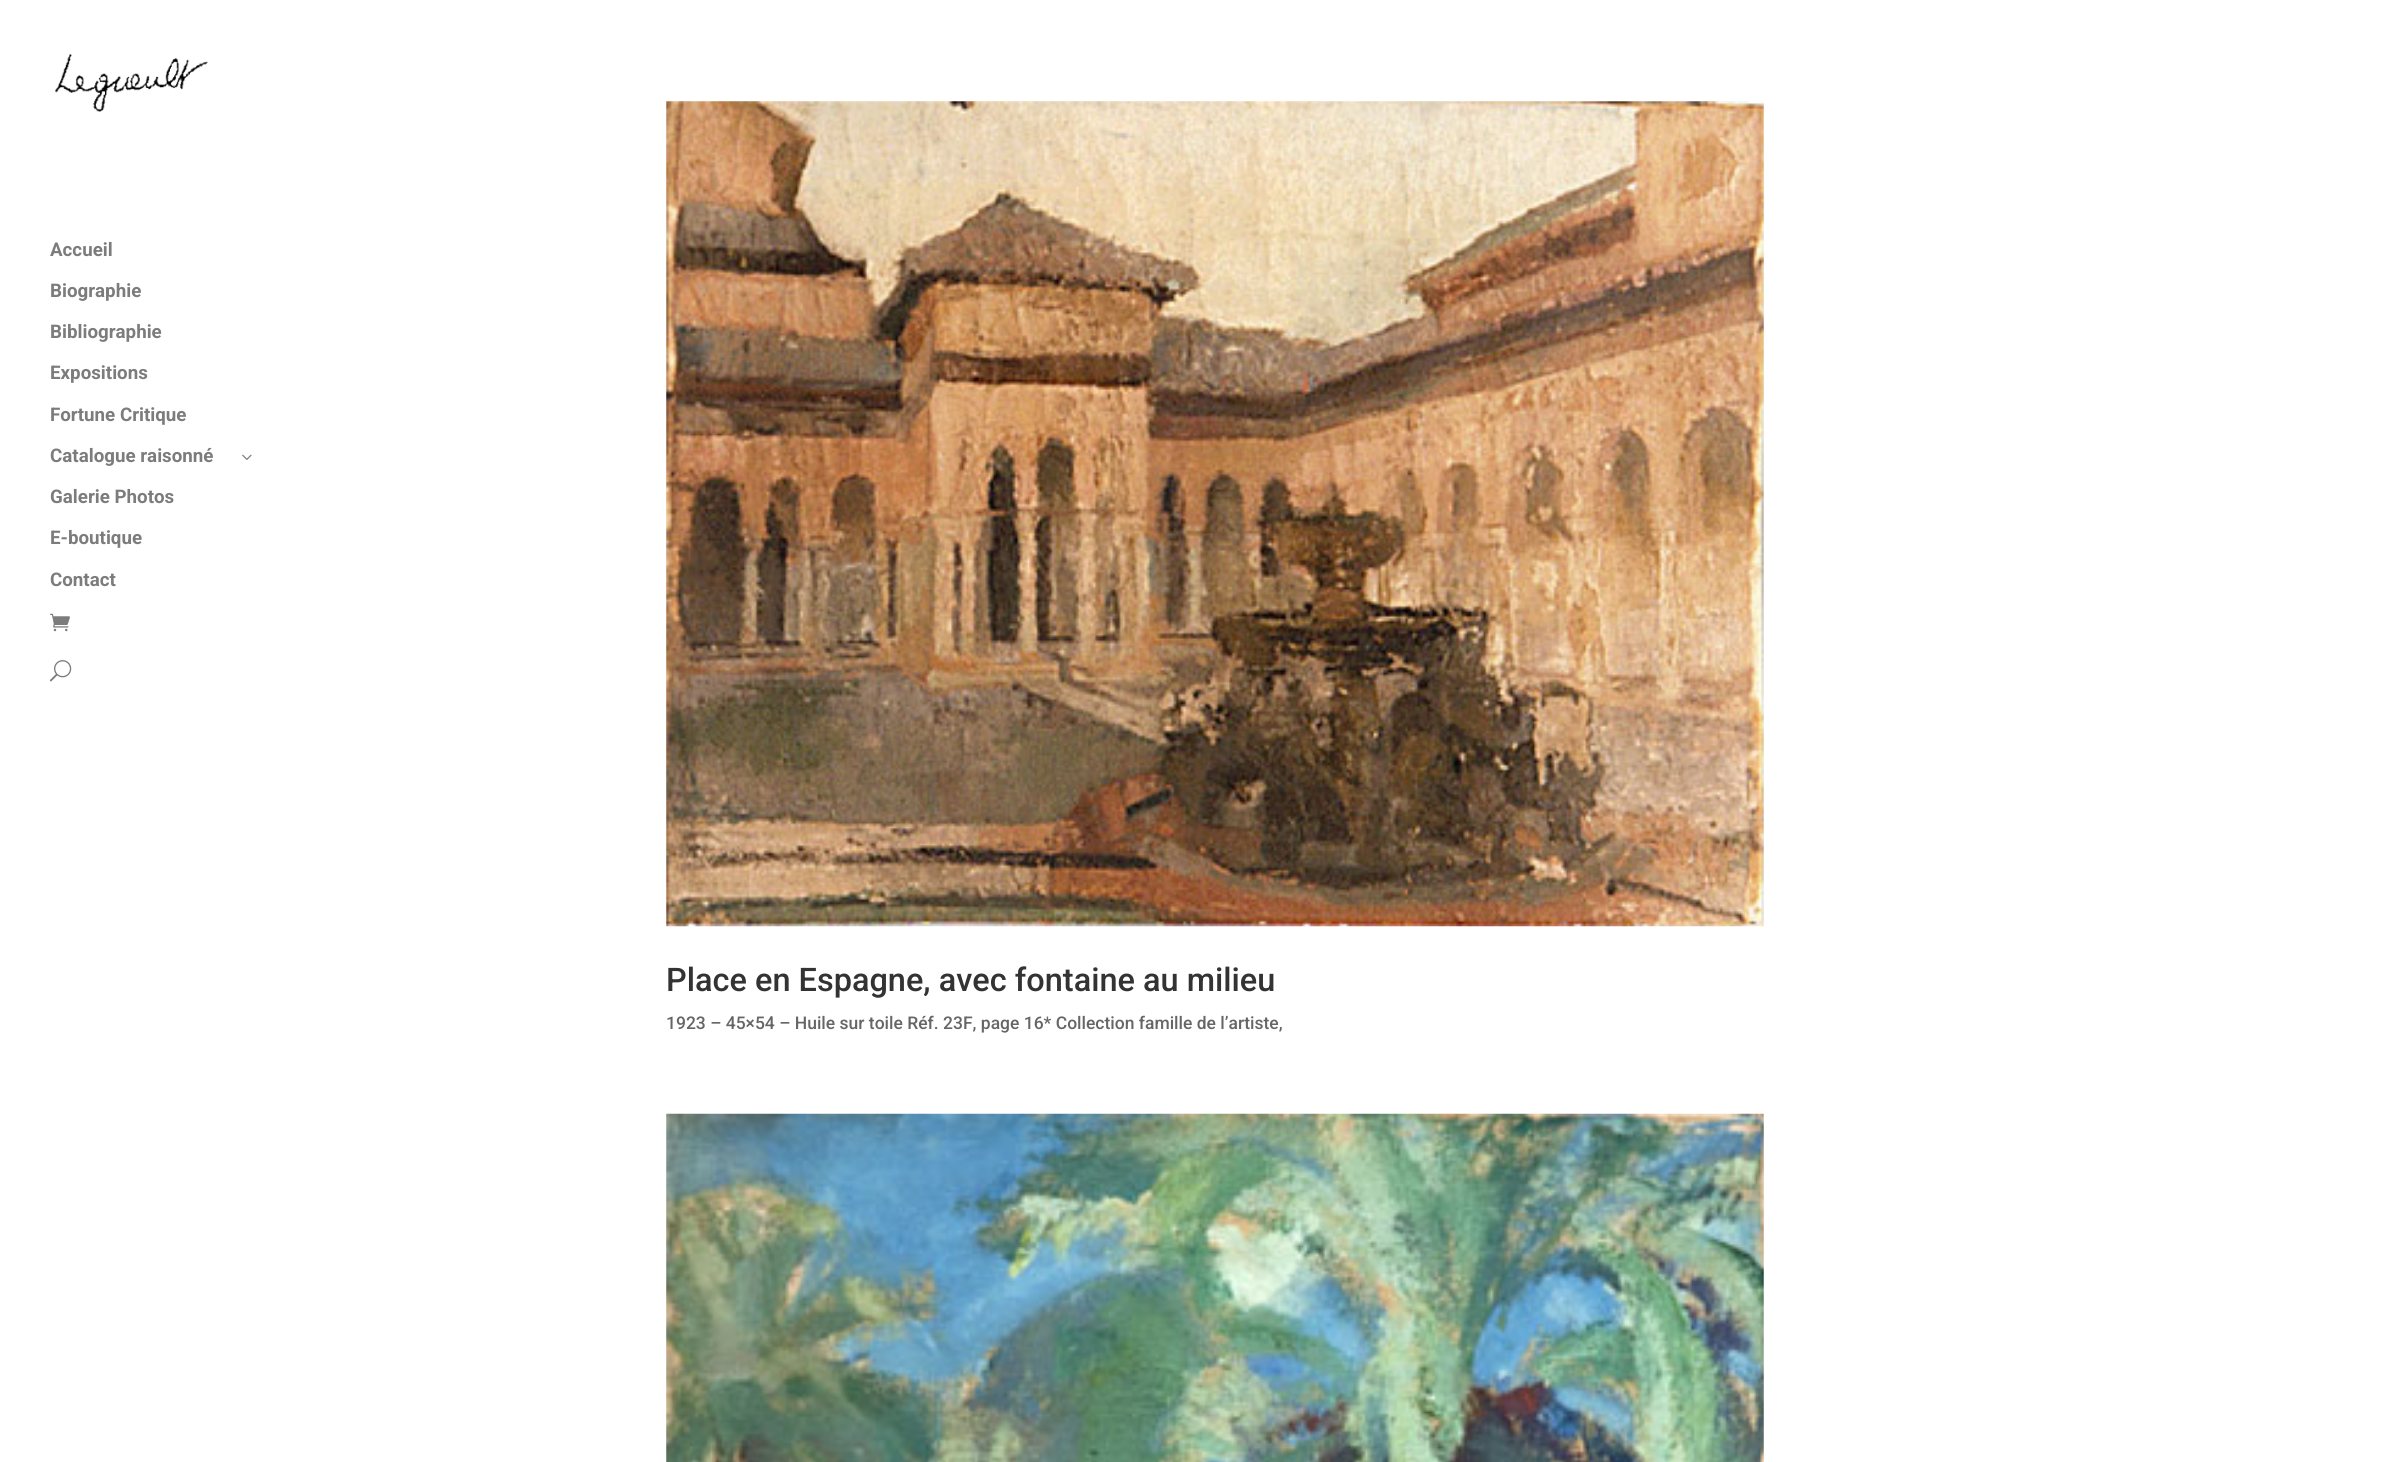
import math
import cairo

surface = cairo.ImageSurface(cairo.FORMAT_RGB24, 2406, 1462)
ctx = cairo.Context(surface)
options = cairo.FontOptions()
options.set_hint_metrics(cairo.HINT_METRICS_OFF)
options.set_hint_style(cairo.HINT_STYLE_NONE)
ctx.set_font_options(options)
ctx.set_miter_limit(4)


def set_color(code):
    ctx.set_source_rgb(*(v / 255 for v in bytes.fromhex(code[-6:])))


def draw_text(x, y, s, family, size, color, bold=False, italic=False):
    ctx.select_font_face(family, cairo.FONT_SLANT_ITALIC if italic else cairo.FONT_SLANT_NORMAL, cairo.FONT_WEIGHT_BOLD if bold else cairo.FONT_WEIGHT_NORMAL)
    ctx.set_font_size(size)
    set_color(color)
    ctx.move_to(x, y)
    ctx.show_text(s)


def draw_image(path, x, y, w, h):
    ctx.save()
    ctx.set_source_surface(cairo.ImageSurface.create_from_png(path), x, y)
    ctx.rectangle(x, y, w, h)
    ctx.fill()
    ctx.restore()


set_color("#ffffff")
ctx.paint()
draw_image("assets/img1.png", 55, 54, 153, 58)
draw_text(50, 256, "Accueil", "Roboto", 18.75, "#7c7c7c", bold=True)
draw_text(50, 297, "Biographie", "Roboto", 18.75, "#7c7c7c", bold=True)
draw_text(50, 338, "Bibliographie", "Roboto", 18.75, "#7c7c7c", bold=True)
draw_text(50, 379, "Expositions", "Roboto", 18.75, "#7c7c7c", bold=True)
draw_text(50, 421, "Fortune Critique", "Roboto", 18.75, "#7c7c7c", bold=True)
draw_text(50, 462, "Catalogue raisonné", "Roboto", 18.75, "#7c7c7c", bold=True)
draw_image("assets/img2.png", 242, 454, 10, 6)
draw_text(50, 503, "Galerie Photos", "Roboto", 18.75, "#7c7c7c", bold=True)
draw_text(50, 544, "E-boutique", "Roboto", 18.75, "#7c7c7c", bold=True)
draw_text(50, 586, "Contact", "Roboto", 18.75, "#7c7c7c", bold=True)
draw_image("assets/img3.png", 50, 613, 20, 19)
draw_image("assets/img4.png", 50, 660, 22, 22)
draw_image("assets/img5.png", 666, 101, 1098, 826)
draw_text(666, 991, "Place en Espagne, avec fontaine au milieu", "Roboto Medium", 32.5, "#333333")
draw_text(666, 1029, "1923 – 45×54 – Huile sur toile Réf. 23F, page 16* Collection famille de l’artiste,", "Roboto Medium", 17.5, "#666666")
draw_image("assets/img6.png", 666, 1113, 1098, 349)
surface.write_to_png("output.png")
